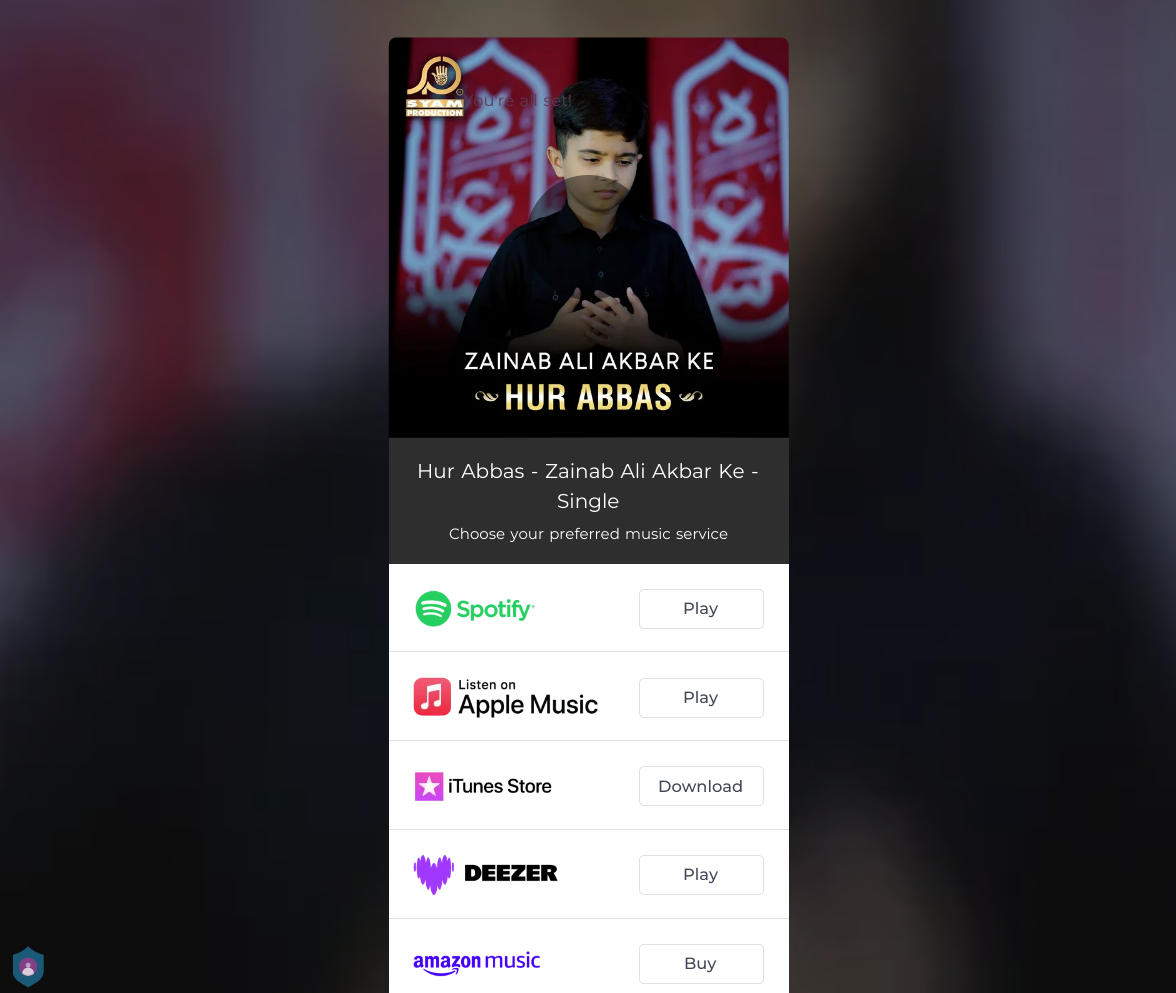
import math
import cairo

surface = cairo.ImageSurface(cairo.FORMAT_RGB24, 1176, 993)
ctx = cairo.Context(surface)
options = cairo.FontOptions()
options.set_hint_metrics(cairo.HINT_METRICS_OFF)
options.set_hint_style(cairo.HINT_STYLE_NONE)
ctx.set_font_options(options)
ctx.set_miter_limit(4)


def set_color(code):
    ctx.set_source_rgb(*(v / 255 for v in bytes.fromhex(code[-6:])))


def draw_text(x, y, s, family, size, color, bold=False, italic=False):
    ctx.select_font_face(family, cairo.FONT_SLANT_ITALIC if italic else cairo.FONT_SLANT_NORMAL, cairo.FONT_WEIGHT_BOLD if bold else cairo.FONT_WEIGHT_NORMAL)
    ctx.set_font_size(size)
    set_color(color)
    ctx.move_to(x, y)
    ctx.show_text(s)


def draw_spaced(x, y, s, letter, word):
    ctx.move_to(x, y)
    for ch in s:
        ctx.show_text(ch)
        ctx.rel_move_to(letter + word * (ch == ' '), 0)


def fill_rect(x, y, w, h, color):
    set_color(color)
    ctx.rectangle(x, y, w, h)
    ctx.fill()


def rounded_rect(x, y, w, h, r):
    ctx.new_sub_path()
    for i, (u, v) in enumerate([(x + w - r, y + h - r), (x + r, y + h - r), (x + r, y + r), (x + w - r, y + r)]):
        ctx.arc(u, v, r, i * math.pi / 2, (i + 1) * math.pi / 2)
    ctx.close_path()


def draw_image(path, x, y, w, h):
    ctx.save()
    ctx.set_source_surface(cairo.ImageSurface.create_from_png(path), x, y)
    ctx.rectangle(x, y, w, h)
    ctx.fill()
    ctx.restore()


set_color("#ffffff")
ctx.paint()
draw_image("assets/img2.png", 0, 0, 1176, 993)
draw_image("assets/img1.png", 13, 946, 31, 42)
draw_image("assets/img3.png", 388, 37, 401, 401)
ctx.set_source_rgba(0, 0, 0, 0.45)
ctx.arc(588.5, 237.5, 62.5, 0, 2 * math.pi)
ctx.fill()
ctx.select_font_face("Montserrat")
ctx.set_font_size(16.25)
set_color("#593954")
draw_spaced(463, 106, "You're all set!", 0, 1.25)
fill_rect(389, 438, 400, 126, "#2e2e2e")
ctx.set_font_size(20)
set_color("#ffffff")
draw_spaced(417, 478, "Hur Abbas - Zainab Ali Akbar Ke -", 0, 1.25)
draw_text(557, 508, "Single", "Montserrat", 20, "#ffffff")
ctx.set_font_size(15)
draw_spaced(449, 539, "Choose your preferred music service", 0, 1.25)
fill_rect(389, 564, 400, 429, "#ffffff")
fill_rect(389, 651, 400, 1, "#e1e1e4")
draw_image("assets/img4.png", 415, 590, 120, 37)
rounded_rect(639.5, 589.5, 124, 39, 4.5)
ctx.set_line_width(1)
ctx.stroke()
draw_text(683, 614, "Play", "Montserrat Medium", 16.25, "#414754")
fill_rect(389, 740, 400, 1, "#e1e1e4")
draw_image("assets/img5.png", 413, 677, 185, 41)
rounded_rect(639.5, 678.5, 124, 39, 4.5)
ctx.stroke()
draw_text(683, 703, "Play", "Montserrat Medium", 16.25, "#414754")
fill_rect(389, 829, 400, 1, "#e1e1e4")
draw_image("assets/img6.png", 415, 772, 137, 29)
rounded_rect(639.5, 766.5, 124, 39, 4.5)
ctx.stroke()
draw_text(658, 792, "Download", "Montserrat Medium", 16.25, "#414754")
fill_rect(389, 918, 400, 1, "#e1e1e4")
draw_image("assets/img7.png", 413, 855, 145, 40)
rounded_rect(639.5, 855.5, 124, 39, 4.5)
ctx.stroke()
draw_text(683, 880, "Play", "Montserrat Medium", 16.25, "#414754")
draw_image("assets/img8.png", 413, 951, 127, 26)
rounded_rect(639.5, 944.5, 124, 39, 4.5)
set_color("#e1e1e4")
ctx.stroke()
draw_text(684, 969, "Buy", "Montserrat Medium", 16.25, "#414754")
surface.write_to_png("output.png")
